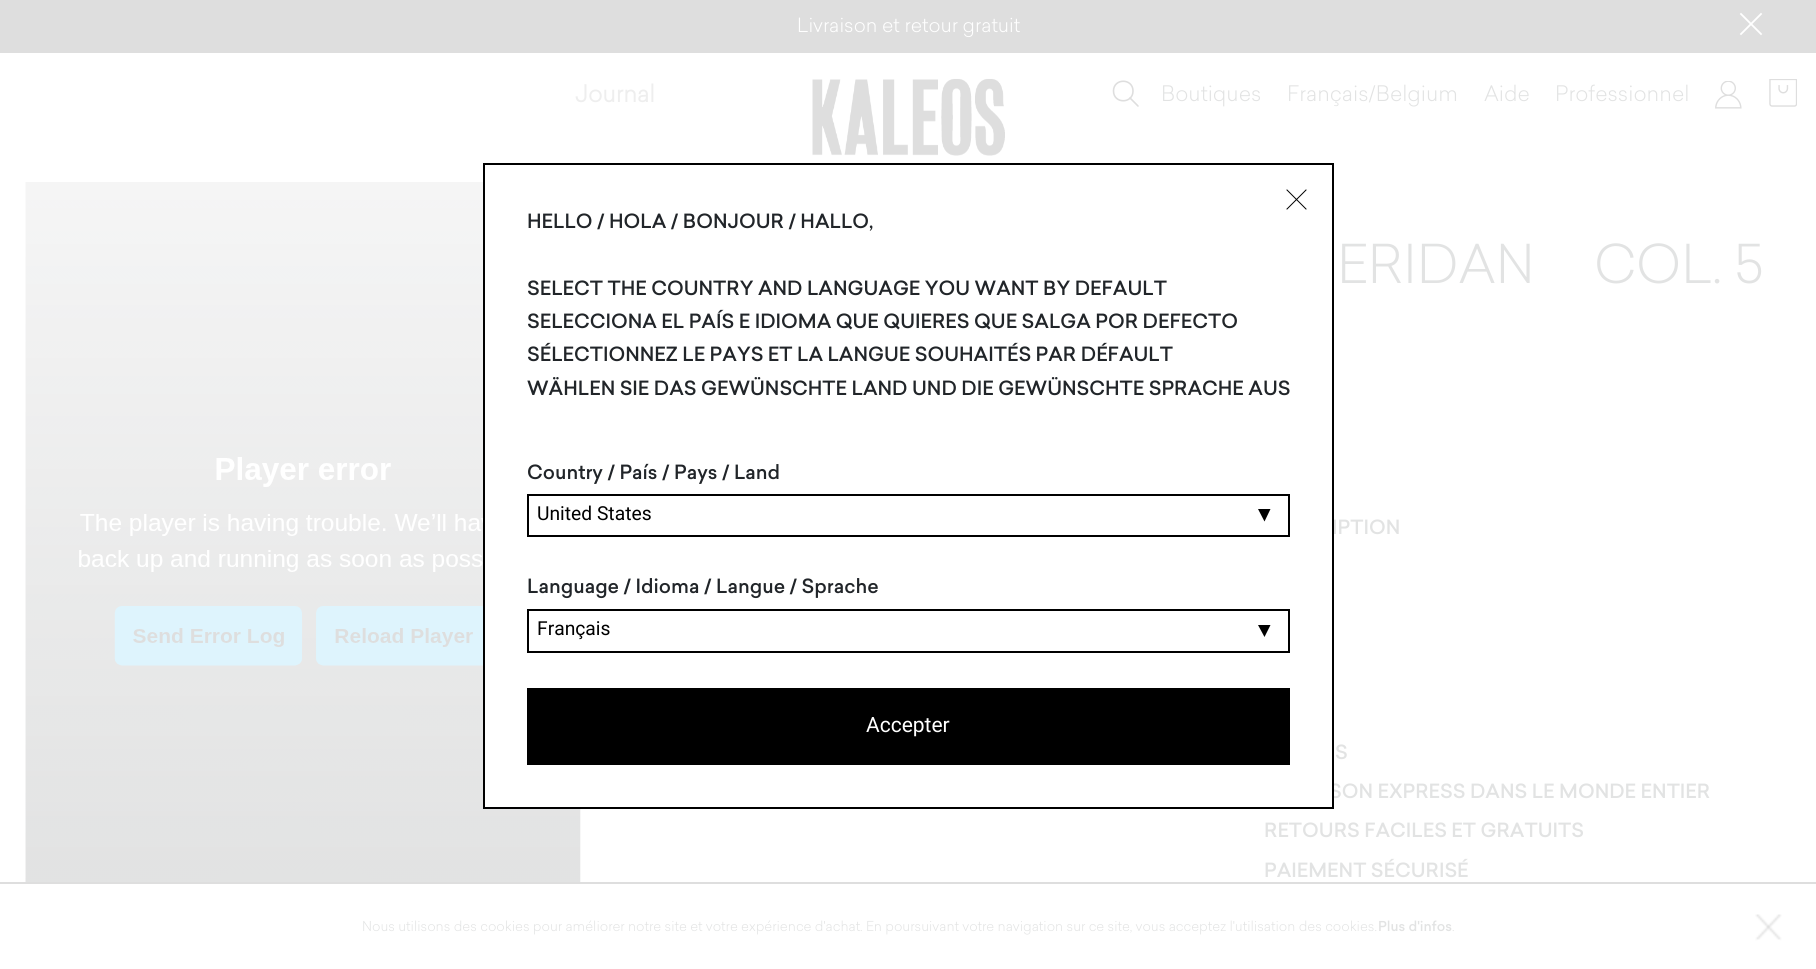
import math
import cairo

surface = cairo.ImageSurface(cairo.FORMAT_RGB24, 1816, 969)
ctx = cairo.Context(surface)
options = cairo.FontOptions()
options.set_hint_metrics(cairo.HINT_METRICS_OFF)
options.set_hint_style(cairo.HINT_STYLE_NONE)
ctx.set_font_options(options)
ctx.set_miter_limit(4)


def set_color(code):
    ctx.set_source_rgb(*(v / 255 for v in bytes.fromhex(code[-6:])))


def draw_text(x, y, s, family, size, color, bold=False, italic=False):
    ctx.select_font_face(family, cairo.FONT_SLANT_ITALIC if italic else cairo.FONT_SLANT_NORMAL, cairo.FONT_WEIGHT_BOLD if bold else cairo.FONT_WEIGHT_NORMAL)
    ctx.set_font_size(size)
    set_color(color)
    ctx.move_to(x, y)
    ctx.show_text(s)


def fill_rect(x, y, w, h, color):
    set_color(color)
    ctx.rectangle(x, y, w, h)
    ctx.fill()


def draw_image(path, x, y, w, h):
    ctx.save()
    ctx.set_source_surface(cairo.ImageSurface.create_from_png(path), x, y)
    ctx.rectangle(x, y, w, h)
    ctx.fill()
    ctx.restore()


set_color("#ffffff")
ctx.paint()
fill_rect(0, 0, 1816, 53, "#dedede")
draw_text(797, 32, "Livraison et retour gratuit", "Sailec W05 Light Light", 19.25, "#ffffff")
ctx.new_path()
ctx.move_to(1741, 14)
ctx.line_to(1761, 34)
ctx.move_to(1761, 14)
ctx.line_to(1741, 34)
ctx.set_line_width(1.8)
ctx.set_line_cap(cairo.LINE_CAP_SQUARE)
ctx.stroke()
draw_text(575, 102, "Journal", "Sailec W05 Light", 23, "#eeeeee", bold=True)
draw_image("assets/img1.png", 812, 78, 193, 78)
ctx.new_path()
ctx.move_to(1133, 91)
ctx.curve_to(1133, 104, 1113.5, 104, 1113.5, 91)
ctx.curve_to(1113.5, 78, 1133, 78, 1133, 91)
ctx.close_path()
set_color("#dedede")
ctx.set_line_width(1.6)
ctx.set_line_cap(cairo.LINE_CAP_BUTT)
ctx.stroke()
ctx.new_path()
ctx.move_to(1130, 98)
ctx.line_to(1138, 106)
ctx.set_line_cap(cairo.LINE_CAP_ROUND)
ctx.set_line_join(cairo.LINE_JOIN_ROUND)
ctx.stroke()
draw_text(1161, 101, "Boutiques", "Sailec W05 Light Light", 21, "#e2e3e3")
draw_text(1287, 101, "Français/Belgium", "Sailec W05 Light Light", 21, "#e2e3e3")
draw_text(1484, 101, "Aide", "Sailec W05 Light Light", 21, "#e2e3e3")
draw_text(1555, 101, "Professionnel", "Sailec W05 Light Light", 21, "#e2e3e3")
draw_image("assets/img2.png", 1715, 81, 27, 28)
draw_image("assets/img3.png", 1769, 79, 28, 28)
draw_image("assets/img4.png", 25, 182, 556, 700)
draw_text(1329, 798, "SON EXPRESS DANS LE MONDE ENTIER", "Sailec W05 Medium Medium", 19.25, "#e2e3e3")
fill_rect(485, 182, 847, 625, "#ffffff")
draw_text(1332, 534, "IPTION", "Sailec W05 Medium Medium", 19.25, "#e2e3e3")
ctx.rectangle(484, 164, 849, 644)
set_color("#000000")
ctx.set_line_width(2)
ctx.set_line_cap(cairo.LINE_CAP_BUTT)
ctx.set_line_join(cairo.LINE_JOIN_MITER)
ctx.stroke()
ctx.new_path()
ctx.move_to(1287, 190)
ctx.line_to(1306, 209)
ctx.move_to(1306, 190)
ctx.line_to(1287, 209)
ctx.set_line_width(1)
ctx.set_line_cap(cairo.LINE_CAP_SQUARE)
ctx.stroke()
draw_text(527, 228, "HELLO / HOLA / BONJOUR / HALLO,", "Sailec W05 Medium Medium", 19.25, "#212529")
draw_text(527, 295, "SELECT THE COUNTRY AND LANGUAGE YOU WANT BY DEFAULT", "Sailec W05 Medium Medium", 19.25, "#212529")
draw_text(527, 328, "SELECCIONA EL PAÍS E IDIOMA QUE QUIERES QUE SALGA POR DEFECTO", "Sailec W05 Medium Medium", 19.25, "#212529")
draw_text(527, 361, "SÉLECTIONNEZ LE PAYS ET LA LANGUE SOUHAITÉS PAR DÉFAULT", "Sailec W05 Medium Medium", 19.25, "#212529")
draw_text(527, 395, "WÄHLEN SIE DAS GEWÜNSCHTE LAND UND DIE GEWÜNSCHTE SPRACHE AUS", "Sailec W05 Medium Medium", 19.25, "#212529")
draw_text(527, 479, "Country / País / Pays / Land", "Sailec W05 Medium Medium", 19.25, "#212529")
set_color("#000000")
ctx.set_fill_rule(cairo.FILL_RULE_EVEN_ODD)
ctx.new_path()
ctx.move_to(1264.5, 521.5)
ctx.line_to(1258, 509)
ctx.line_to(1270.5, 509)
ctx.close_path()
ctx.fill()
ctx.rectangle(528, 495, 761, 41)
ctx.set_line_width(2)
ctx.set_line_cap(cairo.LINE_CAP_BUTT)
ctx.stroke()
draw_text(537, 520, "United States", "Roboto", 19.25, "#000000")
draw_text(527, 593, "Language / Idioma / Langue / Sprache", "Sailec W05 Medium Medium", 19.25, "#212529")
set_color("#000000")
ctx.new_path()
ctx.move_to(1264.5, 637)
ctx.line_to(1258, 625)
ctx.line_to(1270.5, 625)
ctx.close_path()
ctx.fill()
ctx.rectangle(528, 610, 761, 42)
ctx.stroke()
draw_text(537, 635, "Français", "Roboto", 19.25, "#000000")
fill_rect(527, 688, 763, 77, "#000000")
draw_text(866, 732, "Accepter", "Roboto", 21, "#ffffff")
draw_text(1337, 283, "ERIDAN", "Sailec W05 Light Light", 52.5, "#e2e3e3")
draw_text(1594, 283, "COL. 5", "Sailec W05 Light Light", 52.5, "#e2e3e3")
draw_text(1335, 759, "S", "Sailec W05 Medium Medium", 19.25, "#e2e3e3")
draw_text(1264, 837, "RETOURS FACILES ET GRATUITS", "Sailec W05 Medium Medium", 19.25, "#e2e3e3")
draw_text(1264, 877, "PAIEMENT SÉCURISÉ", "Sailec W05 Medium Medium", 19.25, "#e2e3e3")
fill_rect(0, 882, 1816, 2, "#dedede")
draw_text(362, 931, "Nous utilisons des cookies pour améliorer notre site et votre expérience d'achat. En poursuivant votre navigation sur ce site, vous acceptez l'utilisation des cookies.", "Sailec W05 Light Light", 13.45, "#e2e3e3")
draw_text(1378, 931, "Plus d'infos", "Sailec W05 Medium Medium", 13.45, "#e2e3e3")
draw_text(1452, 931, ".", "Sailec W05 Light Light", 13.45, "#e2e3e3")
draw_image("assets/img5.png", 1755, 914, 27, 27)
surface.write_to_png("output.png")
